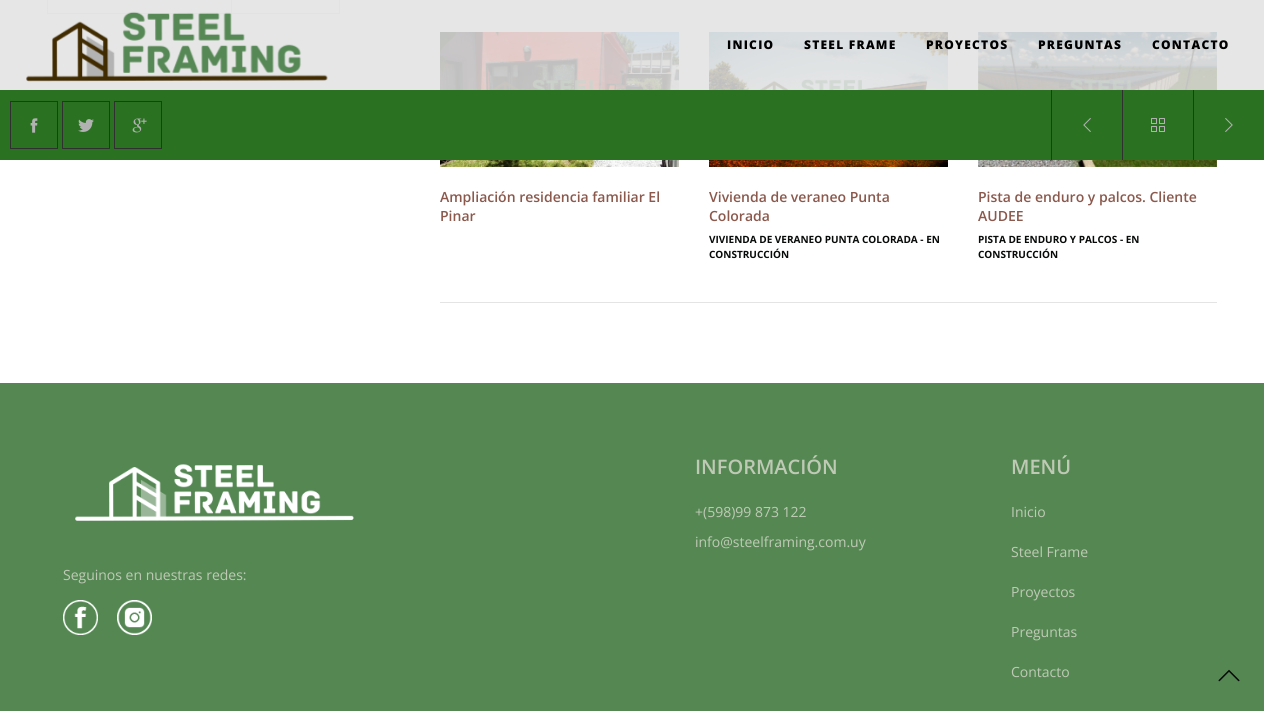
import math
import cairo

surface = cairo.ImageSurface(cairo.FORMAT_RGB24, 1264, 711)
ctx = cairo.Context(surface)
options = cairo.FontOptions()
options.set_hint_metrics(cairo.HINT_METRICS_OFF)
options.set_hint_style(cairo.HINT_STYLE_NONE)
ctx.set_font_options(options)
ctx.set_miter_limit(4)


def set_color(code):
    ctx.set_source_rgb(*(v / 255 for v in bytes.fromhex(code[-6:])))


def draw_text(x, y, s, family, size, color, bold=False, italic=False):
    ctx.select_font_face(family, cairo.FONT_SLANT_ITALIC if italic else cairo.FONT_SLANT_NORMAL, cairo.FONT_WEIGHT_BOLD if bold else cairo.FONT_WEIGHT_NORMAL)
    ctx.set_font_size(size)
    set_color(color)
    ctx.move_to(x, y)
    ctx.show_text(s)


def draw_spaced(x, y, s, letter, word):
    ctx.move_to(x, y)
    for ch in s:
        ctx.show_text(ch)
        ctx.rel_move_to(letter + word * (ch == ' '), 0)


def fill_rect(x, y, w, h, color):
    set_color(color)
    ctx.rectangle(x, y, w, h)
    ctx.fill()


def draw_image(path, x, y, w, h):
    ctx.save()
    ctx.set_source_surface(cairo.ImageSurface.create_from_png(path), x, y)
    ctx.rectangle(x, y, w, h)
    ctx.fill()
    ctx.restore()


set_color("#ffffff")
ctx.paint()
fill_rect(339, 0, 1, 14, "#e4e4e4")
fill_rect(47, 13, 293, 1, "#e4e4e4")
fill_rect(47, 0, 1, 14, "#e4e4e4")
fill_rect(231, 0, 1, 14, "#e4e4e4")
draw_image("assets/img8.png", 440, 32, 239, 135)
draw_image("assets/img9.png", 709, 32, 239, 135)
draw_image("assets/img10.png", 978, 32, 239, 135)
ctx.set_source_rgba(0.886, 0.886, 0.886, 0.85)
ctx.rectangle(0, 0, 1264, 90)
ctx.fill()
draw_image("assets/img1.png", 26, 11, 302, 71)
ctx.select_font_face("Open Sans ExtraBold")
ctx.set_font_size(12)
set_color("#000000")
draw_spaced(727, 49, "INICIO", 1.25, 0)
draw_spaced(804, 49, "STEEL FRAME", 1.25, 0)
draw_spaced(926, 49, "PROYECTOS", 1.25, 0)
draw_spaced(1038, 49, "PREGUNTAS", 1.25, 0)
draw_spaced(1152, 49, "CONTACTO", 1.25, 0)
fill_rect(0, 90, 1264, 70, "#2a7221")
ctx.rectangle(10.5, 101.5, 47, 47)
set_color("#303030")
ctx.set_line_width(1)
ctx.stroke()
draw_image("assets/img2.png", 30, 118, 8, 15)
ctx.rectangle(62.5, 101.5, 47, 47)
ctx.stroke()
draw_image("assets/img3.png", 78, 119, 16, 13)
ctx.rectangle(114.5, 101.5, 47, 47)
ctx.stroke()
draw_image("assets/img4.png", 132, 118, 15, 15)
fill_rect(1051, 90, 1, 70, "#303030")
draw_image("assets/img5.png", 1083, 118, 8, 14)
fill_rect(1122, 90, 1, 70, "#303030")
draw_image("assets/img6.png", 1151, 118, 14, 14)
fill_rect(1193, 90, 1, 70, "#303030")
draw_image("assets/img7.png", 1225, 118, 8, 14)
fill_rect(440, 302, 777, 1, "#e4e4e4")
draw_text(440, 202, "Ampliación residencia familiar El", "Open Sans SemiBold", 14, "#8b584c")
draw_text(440, 221, "Pinar", "Open Sans SemiBold", 14, "#8b584c")
draw_text(709, 202, "Vivienda de veraneo Punta", "Open Sans SemiBold", 14, "#8b584c")
draw_text(709, 221, "Colorada", "Open Sans SemiBold", 14, "#8b584c")
draw_text(709, 243, "VIVIENDA DE VERANEO PUNTA COLORADA - EN", "Open Sans", 10, "#080a0a", bold=True)
draw_text(709, 258, "CONSTRUCCIÓN", "Open Sans", 10, "#080a0a", bold=True)
draw_text(978, 202, "Pista de enduro y palcos. Cliente", "Open Sans SemiBold", 14, "#8b584c")
draw_text(978, 221, "AUDEE", "Open Sans SemiBold", 14, "#8b584c")
draw_text(978, 243, "PISTA DE ENDURO Y PALCOS - EN", "Open Sans", 10, "#080a0a", bold=True)
draw_text(978, 258, "CONSTRUCCIÓN", "Open Sans", 10, "#080a0a", bold=True)
fill_rect(0, 383, 1264, 328, "#558753")
draw_image("assets/img11.png", 75, 464, 279, 57)
draw_text(63, 580, "Seguinos en nuestras redes:", "Open Sans", 14, "#bfcab5")
draw_image("assets/img12.png", 63, 600, 35, 35)
draw_image("assets/img13.png", 117, 600, 35, 35)
draw_text(695, 474, "INFORMACIÓN", "Open Sans SemiBold", 20, "#bfcab5")
draw_text(695, 517, "+(598)99 873 122", "Open Sans", 14, "#bfcab5")
draw_text(695, 547, "info@steelframing.com.uy", "Open Sans", 14, "#bfcab5")
draw_text(1011, 474, "MENÚ", "Open Sans SemiBold", 20, "#bfcab5")
draw_text(1011, 517, "Inicio", "Open Sans", 14, "#bfcab5")
draw_text(1011, 557, "Steel Frame", "Open Sans", 14, "#bfcab5")
draw_text(1011, 597, "Proyectos", "Open Sans", 14, "#bfcab5")
draw_text(1011, 637, "Preguntas", "Open Sans", 14, "#bfcab5")
draw_text(1011, 677, "Contacto", "Open Sans", 14, "#bfcab5")
draw_image("assets/img14.png", 1218, 669, 22, 13)
surface.write_to_png("output.png")
